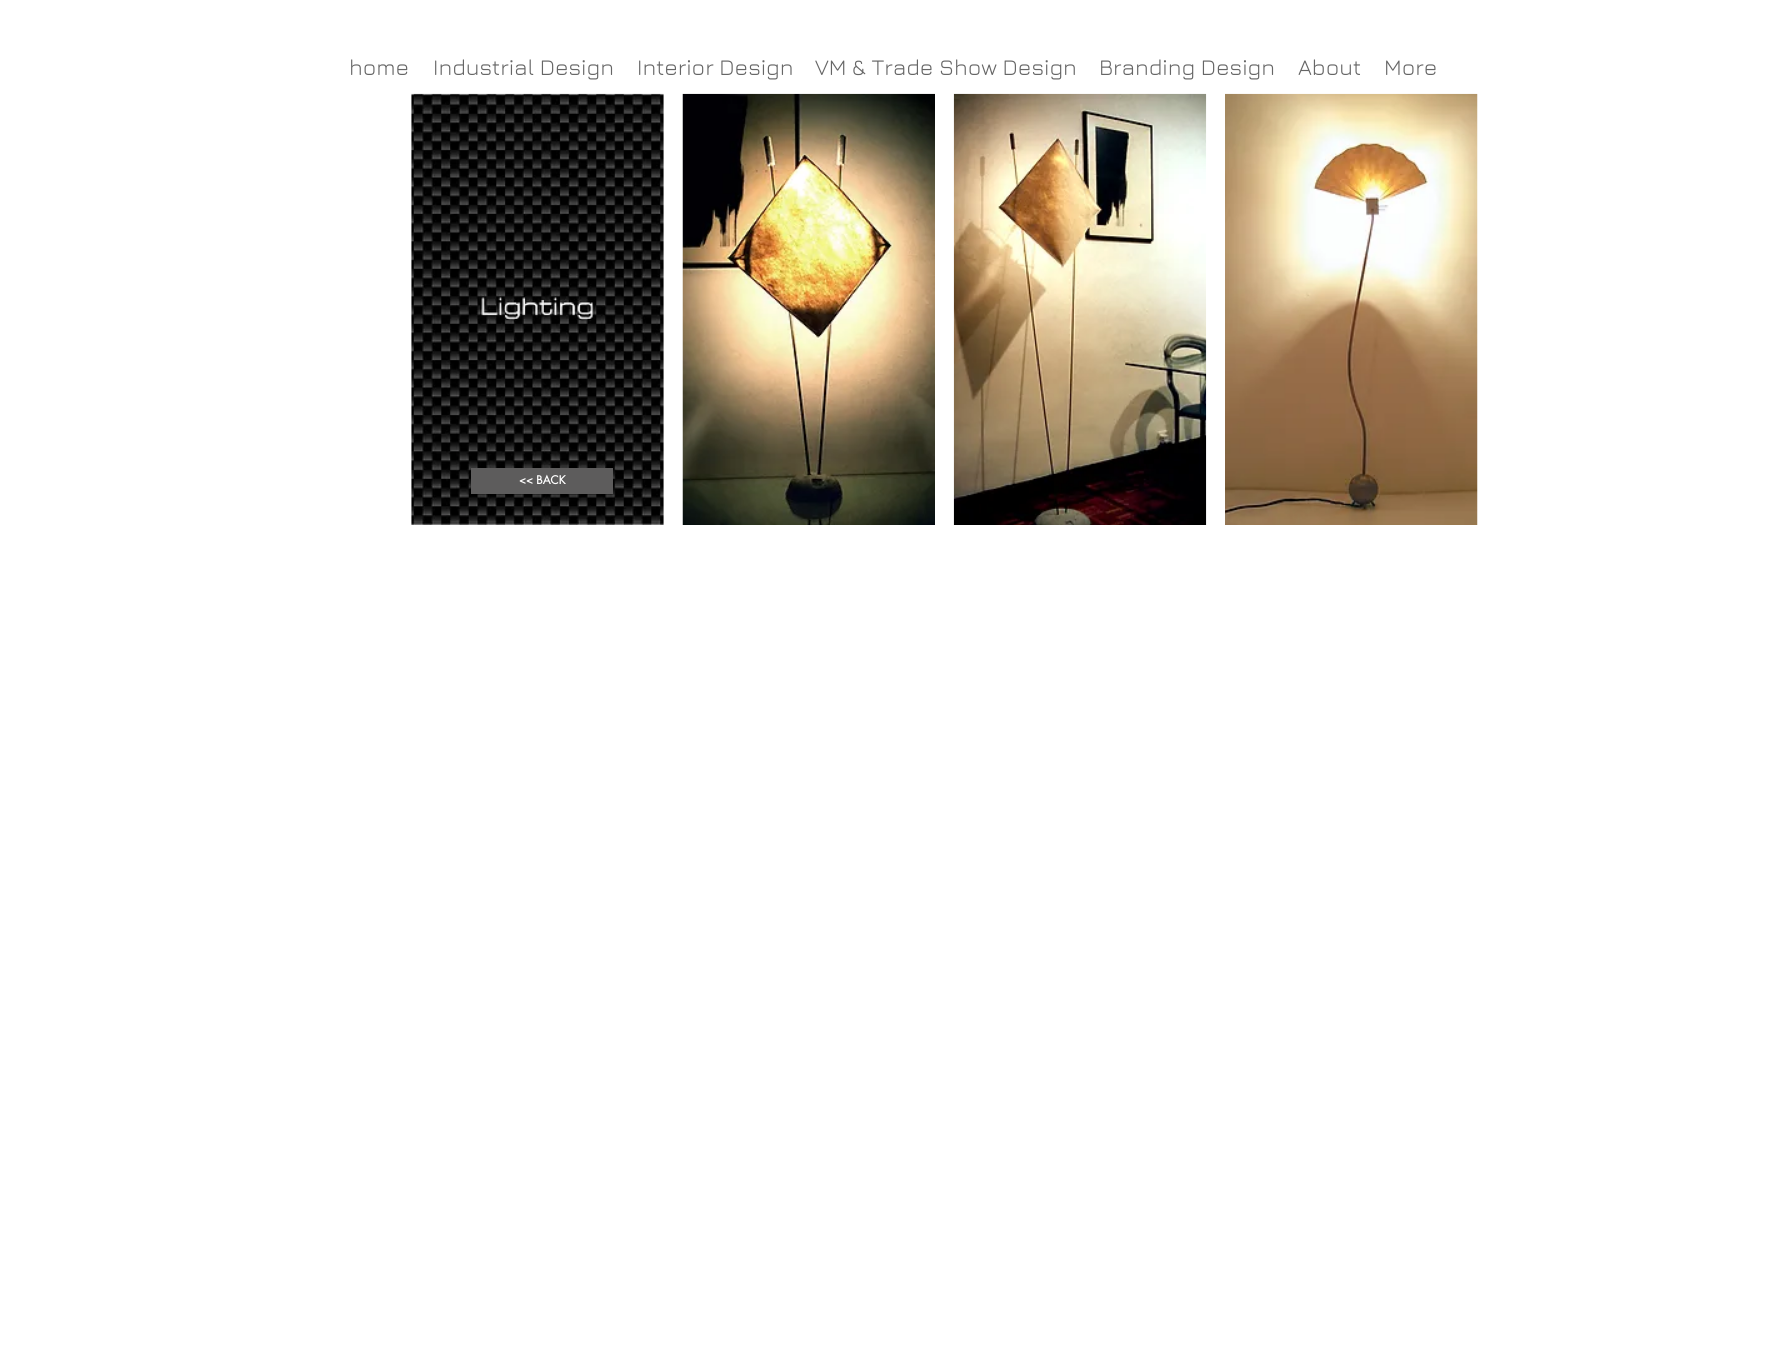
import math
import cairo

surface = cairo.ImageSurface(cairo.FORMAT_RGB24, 1784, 1345)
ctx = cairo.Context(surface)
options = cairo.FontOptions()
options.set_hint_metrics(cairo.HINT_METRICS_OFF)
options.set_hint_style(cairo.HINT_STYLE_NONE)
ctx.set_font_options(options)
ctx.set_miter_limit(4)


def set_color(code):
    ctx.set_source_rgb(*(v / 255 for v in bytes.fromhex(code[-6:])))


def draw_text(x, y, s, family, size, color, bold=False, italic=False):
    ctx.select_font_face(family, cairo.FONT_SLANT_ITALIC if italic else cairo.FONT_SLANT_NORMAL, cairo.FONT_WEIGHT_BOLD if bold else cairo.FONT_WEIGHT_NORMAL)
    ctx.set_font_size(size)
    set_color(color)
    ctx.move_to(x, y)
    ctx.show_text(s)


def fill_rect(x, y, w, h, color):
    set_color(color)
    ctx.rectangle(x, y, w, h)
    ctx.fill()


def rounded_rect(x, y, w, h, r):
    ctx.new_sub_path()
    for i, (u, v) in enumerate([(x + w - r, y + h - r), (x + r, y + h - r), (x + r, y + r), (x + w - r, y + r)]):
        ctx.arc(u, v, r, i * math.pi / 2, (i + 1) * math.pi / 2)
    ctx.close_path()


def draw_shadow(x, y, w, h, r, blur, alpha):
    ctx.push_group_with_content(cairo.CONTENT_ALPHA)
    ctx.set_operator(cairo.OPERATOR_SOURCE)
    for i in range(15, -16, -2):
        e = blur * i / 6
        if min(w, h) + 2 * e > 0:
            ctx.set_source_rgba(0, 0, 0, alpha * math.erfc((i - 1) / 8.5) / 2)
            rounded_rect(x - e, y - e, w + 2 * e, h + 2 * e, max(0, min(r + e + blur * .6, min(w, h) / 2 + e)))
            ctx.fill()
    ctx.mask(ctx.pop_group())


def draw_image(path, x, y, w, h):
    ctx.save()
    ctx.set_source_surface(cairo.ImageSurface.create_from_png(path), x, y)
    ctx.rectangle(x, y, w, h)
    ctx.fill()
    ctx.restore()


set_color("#ffffff")
ctx.paint()
draw_text(349, 75, "home", "Jura", 22.5, "#666666")
draw_text(433, 75, "Industrial Design", "Jura", 22.5, "#666666")
draw_text(637, 75, "Interior Design", "Jura", 22.5, "#666666")
draw_text(815, 75, "VM & Trade Show Design", "Jura", 22.5, "#666666")
draw_text(1099, 75, "Branding Design", "Jura", 22.5, "#666666")
draw_text(1298, 75, "About", "Jura", 22.5, "#666666")
draw_text(1384, 75, "More", "Jura", 22.5, "#666666")
draw_image("assets/img1.png", 411, 93, 253, 432)
draw_image("assets/img2.png", 682, 93, 253, 432)
draw_image("assets/img3.png", 953, 93, 254, 432)
draw_image("assets/img4.png", 1225, 93, 253, 432)
set_color("#000000")
draw_shadow(471, 469, 142, 26, 0, 2.5, 0.6)
fill_rect(471, 468, 142, 26, "#5d5c5c")
draw_text(519, 484, "<< BACK", "futura", 11.25, "#ffffff", bold=True)
surface.write_to_png("output.png")
